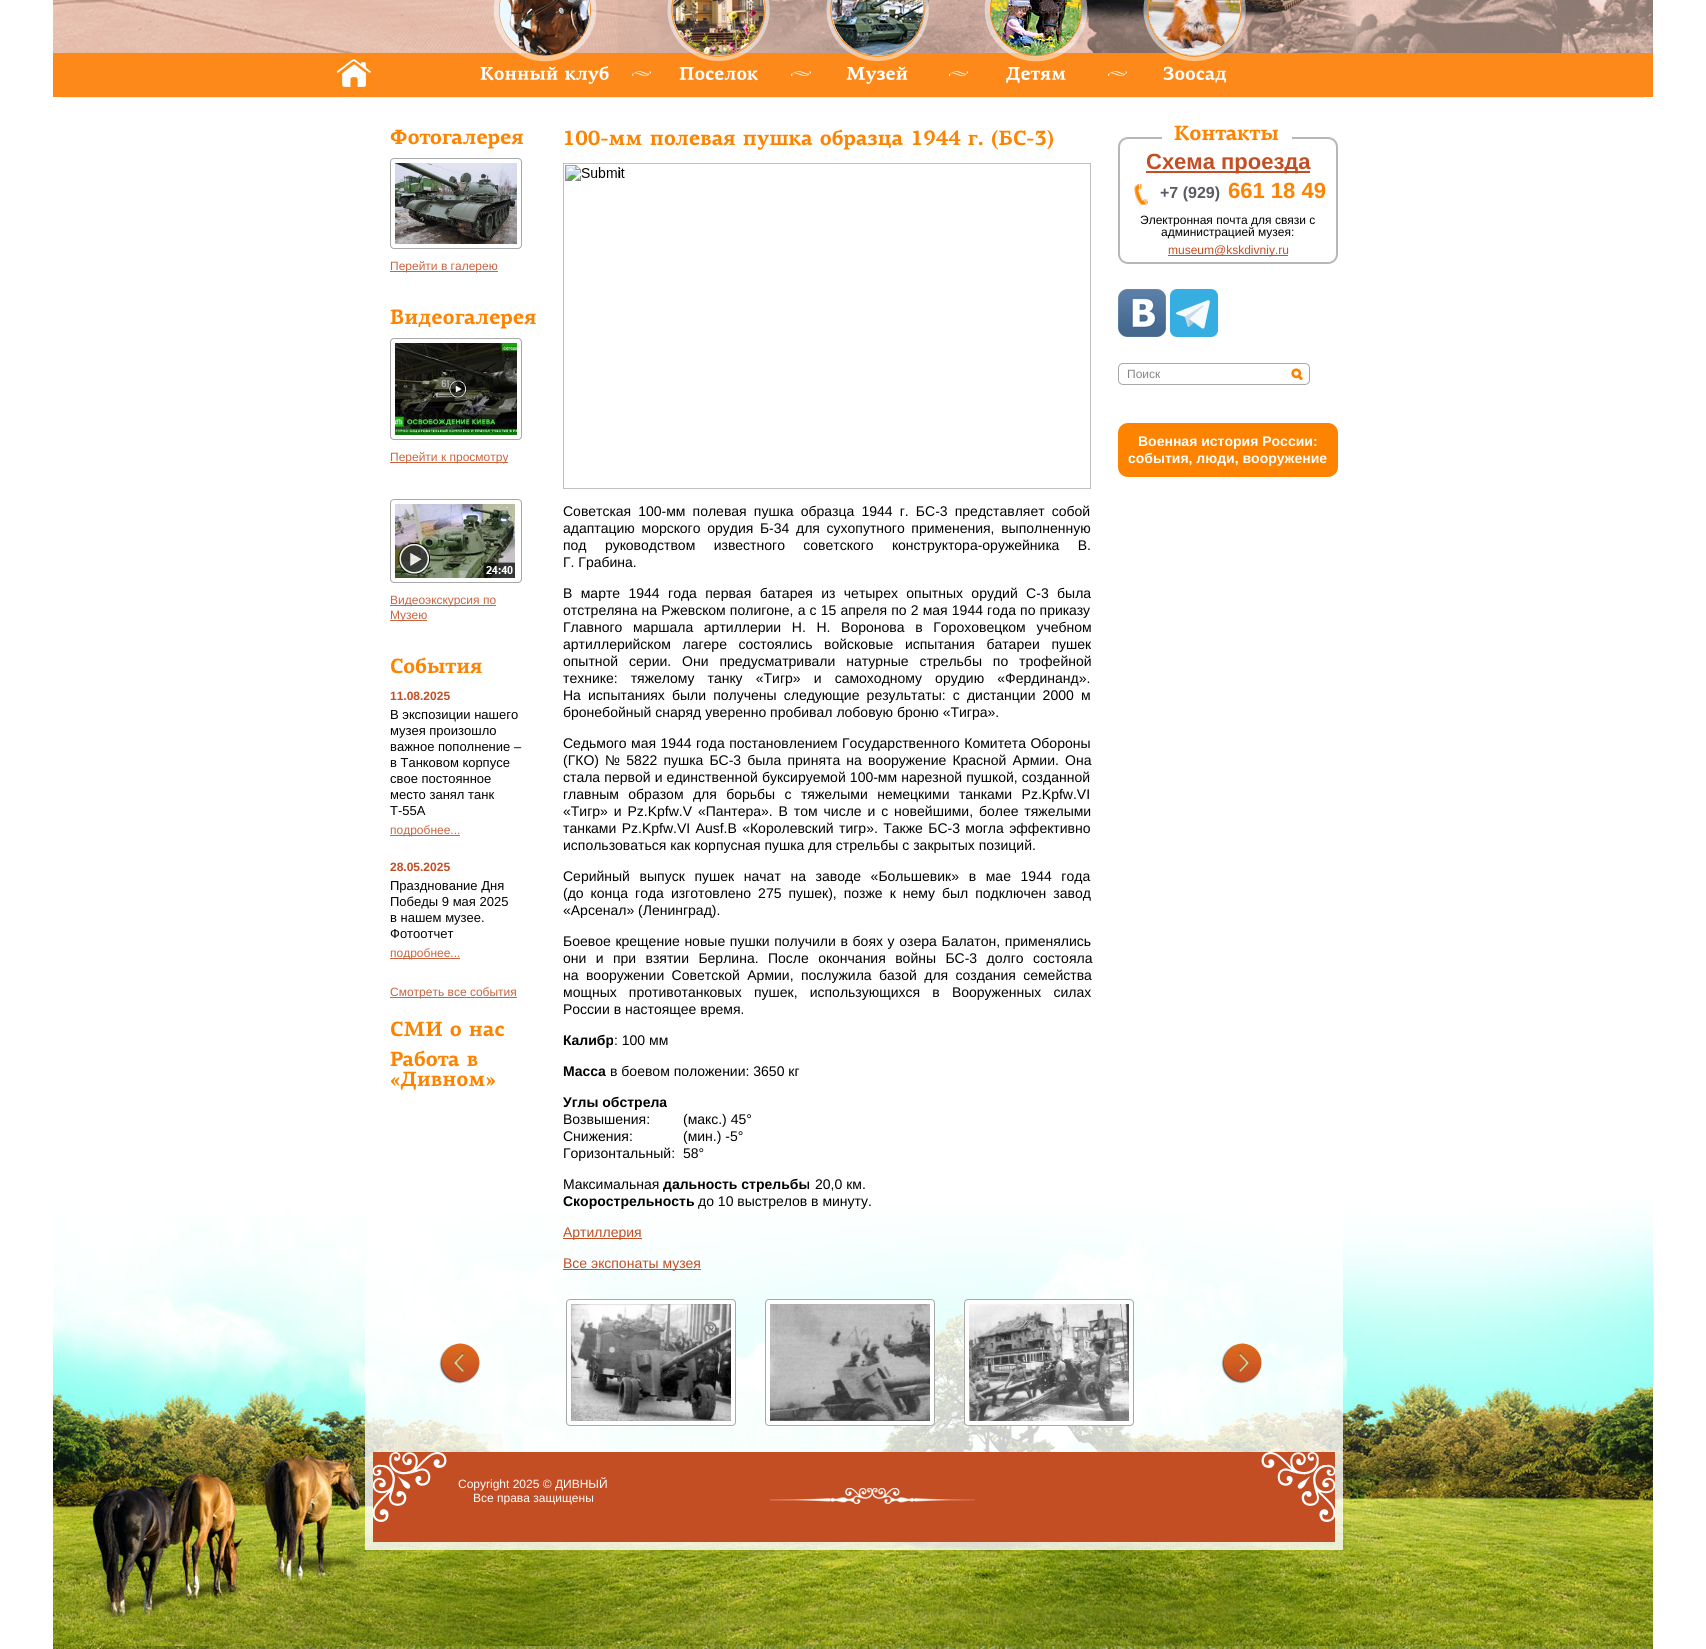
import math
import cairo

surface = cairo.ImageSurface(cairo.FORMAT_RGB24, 1706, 1649)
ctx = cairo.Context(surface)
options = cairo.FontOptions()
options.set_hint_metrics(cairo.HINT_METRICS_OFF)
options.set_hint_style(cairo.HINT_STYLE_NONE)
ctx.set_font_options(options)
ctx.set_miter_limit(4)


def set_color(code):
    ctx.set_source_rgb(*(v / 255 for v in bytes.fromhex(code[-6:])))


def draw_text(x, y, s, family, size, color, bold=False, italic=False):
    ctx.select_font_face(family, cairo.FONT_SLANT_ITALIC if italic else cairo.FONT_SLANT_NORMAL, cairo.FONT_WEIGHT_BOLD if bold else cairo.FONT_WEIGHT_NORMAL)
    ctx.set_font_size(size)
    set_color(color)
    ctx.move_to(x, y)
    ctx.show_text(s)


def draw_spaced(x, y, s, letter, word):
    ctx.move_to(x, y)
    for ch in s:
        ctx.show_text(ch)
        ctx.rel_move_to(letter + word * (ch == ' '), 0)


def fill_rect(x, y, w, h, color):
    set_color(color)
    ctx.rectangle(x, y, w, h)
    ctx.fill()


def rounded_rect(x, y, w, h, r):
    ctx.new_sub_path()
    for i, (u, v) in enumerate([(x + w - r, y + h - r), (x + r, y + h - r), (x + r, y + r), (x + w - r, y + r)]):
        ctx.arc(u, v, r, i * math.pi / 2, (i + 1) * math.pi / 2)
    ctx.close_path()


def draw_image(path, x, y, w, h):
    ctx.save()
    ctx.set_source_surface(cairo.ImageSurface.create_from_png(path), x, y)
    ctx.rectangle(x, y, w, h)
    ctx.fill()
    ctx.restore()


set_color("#ffffff")
ctx.paint()
draw_image("assets/img1.png", 53, 0, 1600, 98)
draw_image("assets/img2.png", 53, 1199, 1600, 450)
draw_image("assets/img3.png", 336, 59, 35, 31)
draw_image("assets/img4.png", 493, 0, 104, 62)
draw_image("assets/img5.png", 480, 66, 78, 15)
draw_image("assets/img6.png", 565, 66, 44, 18)
draw_image("assets/img7.png", 632, 71, 19, 5)
draw_image("assets/img8.png", 667, 0, 103, 61)
draw_image("assets/img9.png", 679, 67, 79, 14)
draw_image("assets/img10.png", 791, 71, 20, 5)
draw_image("assets/img11.png", 826, 0, 103, 61)
draw_image("assets/img12.png", 846, 66, 62, 18)
draw_image("assets/img7.png", 949, 71, 19, 5)
draw_image("assets/img13.png", 984, 0, 104, 62)
draw_image("assets/img14.png", 1006, 67, 60, 16)
draw_image("assets/img7.png", 1108, 71, 19, 5)
draw_image("assets/img15.png", 1143, 0, 103, 61)
draw_image("assets/img16.png", 1163, 66, 64, 17)
ctx.set_source_rgba(1, 1, 1, 0.8)
ctx.rectangle(365, 1199, 978, 351)
ctx.fill()
draw_image("assets/img17.png", 390, 129, 134, 20)
rounded_rect(390.5, 158.5, 131, 90, 3.5)
set_color("#a8a8a8")
ctx.set_line_width(1)
ctx.stroke()
draw_image("assets/img18.png", 395, 163, 122, 81)
fill_rect(390, 271, 108, 1, "#ca643f")
draw_text(390, 270, "Перейти в галерею", "Liberation Sans", 12, "#ca643f")
draw_image("assets/img19.png", 390, 309, 146, 20)
rounded_rect(390.5, 338.5, 131, 101, 3.5)
set_color("#a8a8a8")
ctx.stroke()
draw_image("assets/img20.png", 395, 343, 122, 92)
fill_rect(390, 462, 118, 1, "#ca643f")
draw_text(390, 461, "Перейти к просмотру", "Liberation Sans", 12, "#ca643f")
rounded_rect(390.5, 499.5, 131, 83, 3.5)
set_color("#a8a8a8")
ctx.stroke()
draw_image("assets/img21.png", 395, 504, 120, 74)
fill_rect(390, 605, 106, 1, "#ca643f")
draw_text(390, 604, "Видеоэкскурсия по", "Liberation Sans", 12, "#ca643f")
fill_rect(390, 620, 37, 1, "#ca643f")
draw_text(390, 619, "Музею", "Liberation Sans", 12, "#ca643f")
draw_image("assets/img22.png", 391, 657, 91, 17)
draw_text(390, 700, "11.08.2025", "Liberation Sans", 12, "#c34e24", bold=True)
draw_text(390, 719, "В экспозиции нашего", "Liberation Sans", 13, "#000000")
draw_text(390, 735, "музея произошло", "Liberation Sans", 13, "#000000")
draw_text(390, 751, "важное пополнение –", "Liberation Sans", 13, "#000000")
draw_text(390, 767, "в Танковом корпусе", "Liberation Sans", 13, "#000000")
draw_text(390, 783, "свое постоянное", "Liberation Sans", 13, "#000000")
draw_text(390, 799, "место занял танк", "Liberation Sans", 13, "#000000")
draw_text(390, 815, "Т-55А", "Liberation Sans", 13, "#000000")
fill_rect(390, 835, 70, 1, "#ca643f")
draw_text(390, 834, "подробнее...", "Liberation Sans", 12, "#ca643f")
draw_text(390, 871, "28.05.2025", "Liberation Sans", 12, "#c34e24", bold=True)
draw_text(390, 890, "Празднование Дня", "Liberation Sans", 13, "#000000")
draw_text(390, 906, "Победы 9 мая 2025", "Liberation Sans", 13, "#000000")
draw_text(390, 922, "в нашем музее.", "Liberation Sans", 13, "#000000")
draw_text(390, 938, "Фотоотчет", "Liberation Sans", 13, "#000000")
fill_rect(390, 958, 70, 1, "#ca643f")
draw_text(390, 957, "подробнее...", "Liberation Sans", 12, "#ca643f")
fill_rect(390, 997, 127, 1, "#ca643f")
draw_text(390, 996, "Смотреть все события", "Liberation Sans", 12, "#ca643f")
draw_image("assets/img23.png", 391, 1021, 51, 16)
draw_image("assets/img24.png", 450, 1025, 11, 12)
draw_image("assets/img25.png", 469, 1025, 35, 12)
draw_image("assets/img26.png", 390, 1050, 70, 17)
draw_image("assets/img27.png", 467, 1055, 11, 11)
draw_image("assets/img28.png", 391, 1071, 104, 19)
draw_image("assets/img29.png", 564, 130, 78, 16)
draw_image("assets/img30.png", 650, 134, 85, 12)
draw_image("assets/img31.png", 743, 134, 70, 16)
draw_image("assets/img32.png", 820, 129, 83, 21)
draw_image("assets/img33.png", 912, 130, 49, 16)
draw_image("assets/img34.png", 968, 134, 15, 12)
draw_image("assets/img35.png", 992, 130, 61, 20)
draw_image("assets/img36.png", 563, 163, 528, 326)
draw_text(618, 178, "i", "Liberation Sans", 14, "#000000")
draw_spaced(563, 516, "Советская 100-мм полевая пушка образца 1944 г. БС-3 представляет собой", 0, 3.25)
draw_spaced(563, 533, "адаптацию морского орудия Б-34 для сухопутного применения, выполненную", 0, 2.75)
draw_spaced(563, 550, "под руководством известного советского конструктора-оружейника В.", 0, 14.5)
draw_text(563, 567, "Г. Грабина.", "Liberation Sans", 14, "#000000")
draw_spaced(563, 598, "В марте 1944 года первая батарея из четырех опытных орудий С-3 была", 0, 4.5)
draw_spaced(563, 615, "отстреляна на Ржевском полигоне, а с 15 апреля по 2 мая 1944 года по приказу", 0, 0.25)
draw_spaced(563, 632, "Главного маршала артиллерии Н. Н. Воронова в Гороховецком учебном", 0, 6.75)
draw_spaced(563, 649, "артиллерийском лагере состоялись войсковые испытания батареи пушек", 0, 7.75)
draw_spaced(563, 666, "опытной серии. Они предусматривали натурные стрельбы по трофейной", 0, 7)
draw_spaced(563, 683, "технике: тяжелому танку «Тигр» и самоходному орудию «Фердинанд».", 0, 9.25)
draw_spaced(563, 700, "На испытаниях были получены следующие результаты: с дистанции 2000 м", 0, 3.25)
draw_text(563, 717, "бронебойный снаряд уверенно пробивал лобовую броню «Тигра».", "Liberation Sans", 14, "#000000")
draw_spaced(563, 748, "Седьмого мая 1944 года постановлением Государственного Комитета Обороны", 0, 0.5)
draw_spaced(563, 765, "(ГКО) № 5822 пушка БС-3 была принята на вооружение Красной Армии. Она", 0, 2.25)
draw_spaced(563, 782, "стала первой и единственной буксируемой 100-мм нарезной пушкой, созданной", 0, 0.25)
draw_spaced(563, 799, "главным образом для борьбы с тяжелыми немецкими танками Pz.Kpfw.VI", 0, 5.5)
draw_spaced(563, 816, "«Тигр» и Pz.Kpfw.V «Пантера». В том числе и с новейшими, более тяжелыми", 0, 2)
draw_spaced(563, 833, "танками Pz.Kpfw.VI Ausf.В «Королевский тигр». Также БС-3 могла эффективно", 0, 1.5)
draw_text(563, 850, "использоваться как корпусная пушка для стрельбы с закрытых позиций.", "Liberation Sans", 14, "#000000")
draw_spaced(563, 881, "Серийный выпуск пушек начат на заводе «Большевик» в мае 1944 года", 0, 5.75)
draw_spaced(563, 898, "(до конца года изготовлено 275 пушек), позже к нему был подключен завод", 0, 3.1)
draw_text(563, 915, "«Арсенал» (Ленинград).", "Liberation Sans", 14, "#000000")
draw_spaced(563, 946, "Боевое крещение новые пушки получили в боях у озера Балатон, применялись", 0, 0.75)
draw_spaced(563, 963, "они и при взятии Берлина. После окончания войны БС-3 долго состояла", 0, 5.5)
draw_spaced(563, 980, "на вооружении Советской Армии, послужила базой для создания семейства", 0, 3.5)
draw_spaced(563, 997, "мощных противотанковых пушек, использующихся в Вооруженных силах", 0, 8.25)
draw_text(563, 1014, "России в настоящее время.", "Liberation Sans", 14, "#000000")
draw_text(563, 1045, "Калибр", "Liberation Sans", 14, "#000000", bold=True)
draw_text(614, 1045, ": 100 мм", "Liberation Sans", 14, "#000000")
draw_text(563, 1076, "Масса", "Liberation Sans", 14, "#000000", bold=True)
draw_text(610, 1076, "в боевом положении: 3650 кг", "Liberation Sans", 14, "#000000")
draw_text(563, 1107, "Углы обстрела", "Liberation Sans", 14, "#000000", bold=True)
draw_text(563, 1124, "Возвышения:", "Liberation Sans", 14, "#000000")
draw_text(683, 1124, "(макс.) 45°", "Liberation Sans", 14, "#000000")
draw_text(563, 1141, "Снижения:", "Liberation Sans", 14, "#000000")
draw_text(683, 1141, "(мин.) -5°", "Liberation Sans", 14, "#000000")
draw_text(563, 1158, "Горизонтальный:", "Liberation Sans", 14, "#000000")
draw_text(683, 1158, "58°", "Liberation Sans", 14, "#000000")
draw_text(563, 1189, "Максимальная", "Liberation Sans", 14, "#000000")
draw_text(663, 1189, "дальность стрельбы", "Liberation Sans", 14, "#000000", bold=True)
draw_text(815, 1189, "20,0 км.", "Liberation Sans", 14, "#000000")
draw_text(563, 1206, "Скорострельность", "Liberation Sans", 14, "#000000", bold=True)
draw_text(698, 1206, "до 10 выстрелов в минуту.", "Liberation Sans", 14, "#000000")
fill_rect(563, 1238, 79, 1, "#c44f25")
draw_text(563, 1237, "Артиллерия", "Liberation Sans", 14, "#c34e24")
fill_rect(563, 1269, 138, 1, "#c44f25")
draw_text(563, 1268, "Все экспонаты музея", "Liberation Sans", 14, "#c34e24")
rounded_rect(1119, 138, 218, 125, 9)
set_color("#b7b7b7")
ctx.set_line_width(2)
ctx.stroke()
fill_rect(1162, 137, 130, 2, "#ffffff")
draw_image("assets/img37.png", 1174, 125, 105, 16)
fill_rect(1146, 171, 164, 2, "#c44f25")
draw_text(1146, 169, "Схема проезда", "Liberation Sans", 22, "#c34e24", bold=True)
draw_image("assets/img38.png", 1134, 184, 14, 22)
draw_text(1160, 198, "+7 (929)", "Liberation Sans", 16, "#5a5a64", bold=True)
draw_text(1228, 198, "661 18 49", "Liberation Sans", 22, "#fd8300", bold=True)
draw_text(1140, 224, "Электронная почта для связи с", "Liberation Sans", 12, "#000000")
draw_text(1161, 236, "администрацией музея:", "Liberation Sans", 12, "#000000")
fill_rect(1168, 255, 120, 1, "#c44f25")
draw_text(1168, 254, "museum@kskdivniy.ru", "Liberation Sans", 12, "#c34e24")
draw_image("assets/img39.png", 1118, 289, 48, 48)
draw_image("assets/img40.png", 1170, 289, 48, 48)
draw_image("assets/img41.png", 1118, 363, 173, 22)
draw_text(1127, 378, "Поиск", "Liberation Sans", 12, "#858585")
draw_image("assets/img42.png", 1291, 363, 19, 22)
set_color("#fe8300")
rounded_rect(1118, 423, 220, 54, 10)
ctx.fill()
draw_text(1138, 446, "Военная история России:", "Liberation Sans", 14, "#ffffff", bold=True)
draw_text(1128, 463, "события, люди, вооружение", "Liberation Sans", 14, "#ffffff", bold=True)
draw_image("assets/img43.png", 439, 1343, 41, 41)
rounded_rect(566.5, 1299.5, 169, 126, 3.5)
ctx.fill_preserve()
set_color("#a8a8a8")
ctx.set_line_width(1)
ctx.stroke()
draw_image("assets/img44.png", 571, 1304, 160, 117)
set_color("#ffffff")
rounded_rect(765.5, 1299.5, 169, 126, 3.5)
ctx.fill_preserve()
set_color("#a8a8a8")
ctx.stroke()
draw_image("assets/img45.png", 770, 1304, 160, 117)
set_color("#ffffff")
rounded_rect(964.5, 1299.5, 169, 126, 3.5)
ctx.fill_preserve()
set_color("#a8a8a8")
ctx.stroke()
draw_image("assets/img46.png", 969, 1304, 160, 117)
draw_image("assets/img47.png", 1221, 1343, 41, 41)
draw_image("assets/img48.png", 373, 1452, 962, 90)
draw_text(458, 1488, "Copyright 2025 © ДИВНЫЙ", "Liberation Sans", 12, "#ffffff")
draw_text(473, 1502, "Все права защищены", "Liberation Sans", 12, "#ffffff")
surface.write_to_png("output.png")
